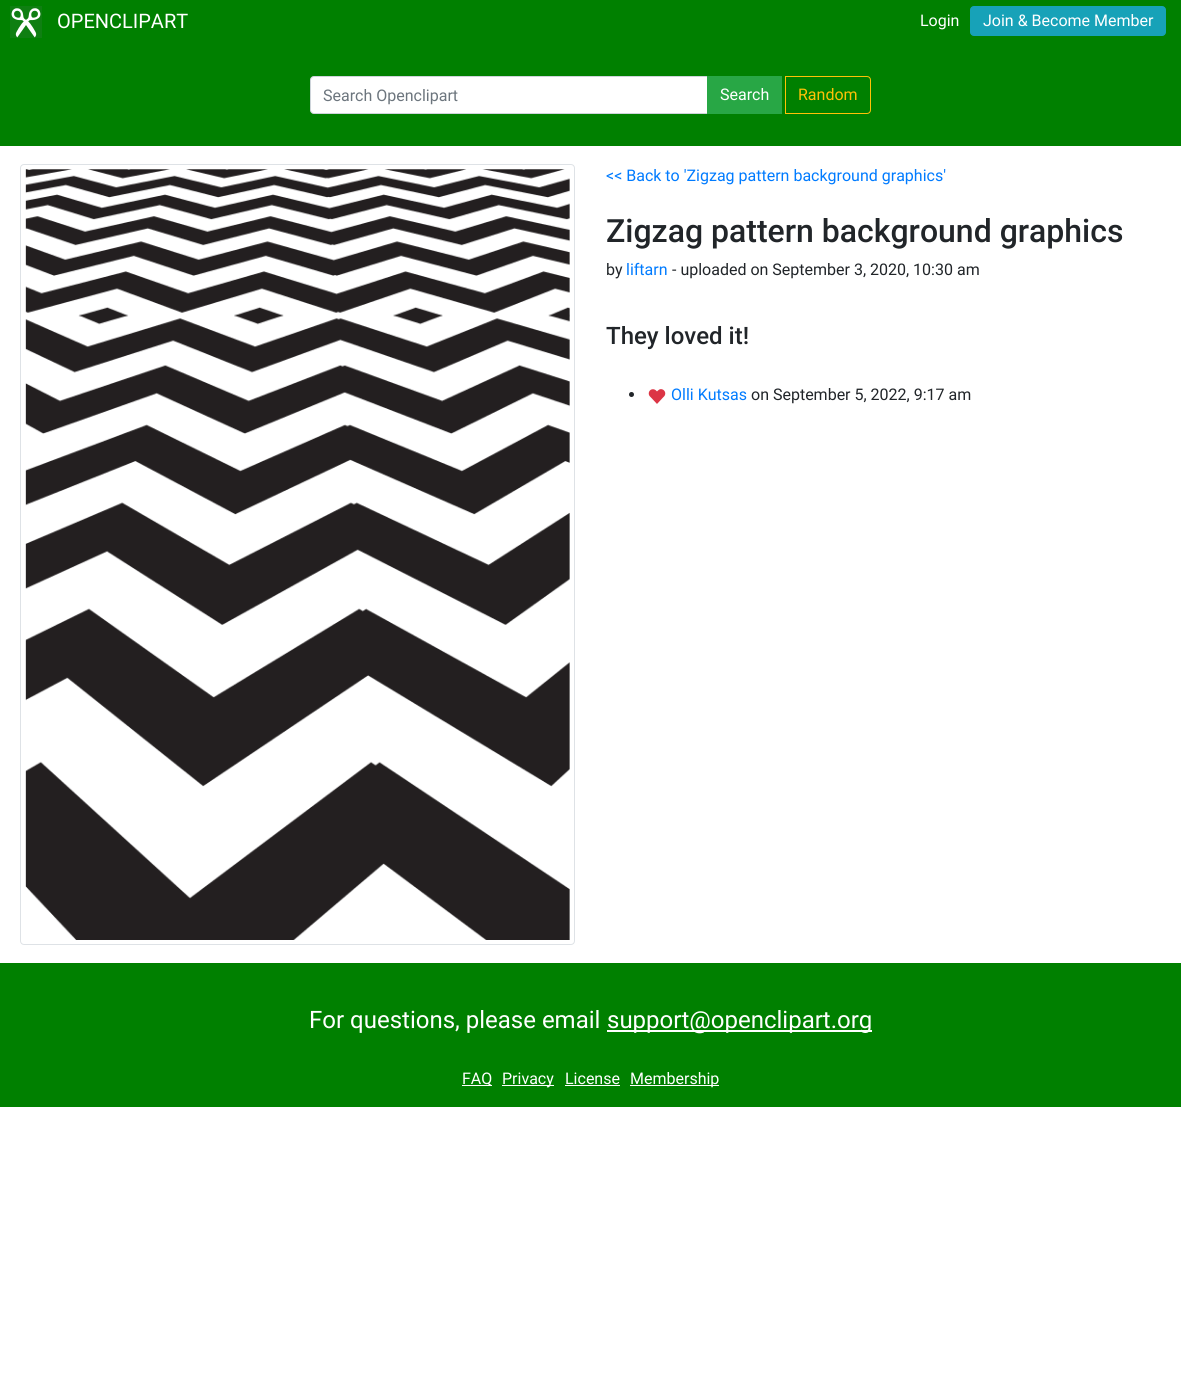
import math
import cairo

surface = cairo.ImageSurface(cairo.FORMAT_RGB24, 1181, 1387)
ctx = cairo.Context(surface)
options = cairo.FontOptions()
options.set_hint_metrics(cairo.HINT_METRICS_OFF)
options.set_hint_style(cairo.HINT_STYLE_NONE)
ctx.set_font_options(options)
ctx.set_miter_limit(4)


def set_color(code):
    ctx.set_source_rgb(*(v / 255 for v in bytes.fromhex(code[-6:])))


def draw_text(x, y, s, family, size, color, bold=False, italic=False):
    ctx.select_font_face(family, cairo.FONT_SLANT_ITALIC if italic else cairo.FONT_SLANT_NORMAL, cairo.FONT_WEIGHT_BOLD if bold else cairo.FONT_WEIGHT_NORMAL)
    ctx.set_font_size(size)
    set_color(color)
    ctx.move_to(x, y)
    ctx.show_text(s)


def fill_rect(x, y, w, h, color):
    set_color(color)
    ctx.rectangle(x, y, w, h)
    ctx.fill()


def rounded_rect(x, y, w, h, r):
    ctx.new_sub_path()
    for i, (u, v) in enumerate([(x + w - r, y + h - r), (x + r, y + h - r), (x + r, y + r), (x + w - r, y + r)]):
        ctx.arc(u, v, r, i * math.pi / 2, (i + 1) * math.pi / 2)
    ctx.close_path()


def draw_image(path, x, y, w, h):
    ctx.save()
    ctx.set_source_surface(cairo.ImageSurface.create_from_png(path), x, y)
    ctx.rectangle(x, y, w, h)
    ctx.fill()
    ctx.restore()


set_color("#ffffff")
ctx.paint()
fill_rect(0, 0, 1181, 146, "#008000")
draw_image("assets/img1.png", 10, 6, 32, 32)
draw_text(57, 28, "OPENCLIPART", "Roboto", 20, "#ffffff")
draw_text(920, 26, "Login", "Roboto", 16, "#ffffff")
set_color("#17a2b8")
rounded_rect(970.5, 6.5, 195, 29, 3.5)
ctx.fill_preserve()
ctx.set_line_width(1)
ctx.stroke()
draw_text(983, 26, "Join & Become Member", "Roboto", 16, "#ffffff")
ctx.new_path()
ctx.move_to(314, 76.5)
ctx.line_to(707.5, 76.5)
ctx.line_to(707.5, 113.5)
ctx.line_to(314, 113.5)
ctx.curve_to(312, 113.5, 310.5, 112, 310.5, 110)
ctx.line_to(310.5, 80)
ctx.curve_to(310.5, 78, 312, 76.5, 314, 76.5)
ctx.close_path()
ctx.fill_preserve()
set_color("#ced4da")
ctx.stroke()
draw_text(323, 101, "Search Openclipart", "Roboto", 16, "#6c757d")
fill_rect(707, 76, 75, 38, "#28a745")
draw_text(720, 100, "Search", "Roboto", 16, "#ffffff")
ctx.new_path()
ctx.move_to(785.5, 76.5)
ctx.line_to(867, 76.5)
ctx.curve_to(869, 76.5, 870.5, 78, 870.5, 80)
ctx.line_to(870.5, 110)
ctx.curve_to(870.5, 112, 869, 113.5, 867, 113.5)
ctx.line_to(785.5, 113.5)
ctx.close_path()
set_color("#ffc107")
ctx.stroke()
draw_text(798, 100, "Random", "Roboto", 16, "#ffc107")
rounded_rect(20.5, 164.5, 554, 780, 3.5)
set_color("#dee2e6")
ctx.stroke()
draw_image("assets/img2.png", 25, 169, 545, 771)
draw_text(606, 181, "<< Back to 'Zigzag pattern background graphics'", "Roboto", 16, "#007bff")
draw_text(606, 242, "Zigzag pattern background graphics", "Roboto Medium", 32, "#212529")
draw_text(606, 275, "by", "Roboto", 16, "#212529")
draw_text(626, 275, "liftarn", "Roboto", 16, "#007bff")
draw_text(672, 275, "- uploaded on September 3, 2020, 10:30 am", "Roboto", 16, "#212529")
draw_text(606, 344, "They loved it!", "Roboto Medium", 24, "#212529")
ctx.new_path()
ctx.arc(631.5, 394.5, 2.5, 0, 2 * math.pi)
ctx.fill()
draw_image("assets/img3.png", 648, 389, 18, 15)
draw_text(671, 400, "Olli Kutsas", "Roboto", 16, "#007bff")
draw_text(751, 400, "on September 5, 2022, 9:17 am", "Roboto", 16, "#212529")
fill_rect(0, 963, 1181, 144, "#008000")
draw_text(309, 1028, "For questions, please email", "Roboto", 24, "#ffffff")
fill_rect(607, 1030, 265, 2, "#ffffff")
draw_text(607, 1028, "support@openclipart.org", "Roboto", 24, "#ffffff")
fill_rect(462, 1085, 30, 1, "#ffffff")
draw_text(462, 1084, "FAQ", "Roboto", 16, "#ffffff")
fill_rect(502, 1085, 52, 1, "#ffffff")
draw_text(502, 1084, "Privacy", "Roboto", 16, "#ffffff")
draw_text(565, 1084, "License", "Roboto", 16, "#ffffff")
fill_rect(565, 1085, 55, 1, "#ffffff")
fill_rect(630, 1085, 89, 1, "#ffffff")
draw_text(630, 1084, "Membership", "Roboto", 16, "#ffffff")
surface.write_to_png("output.png")
